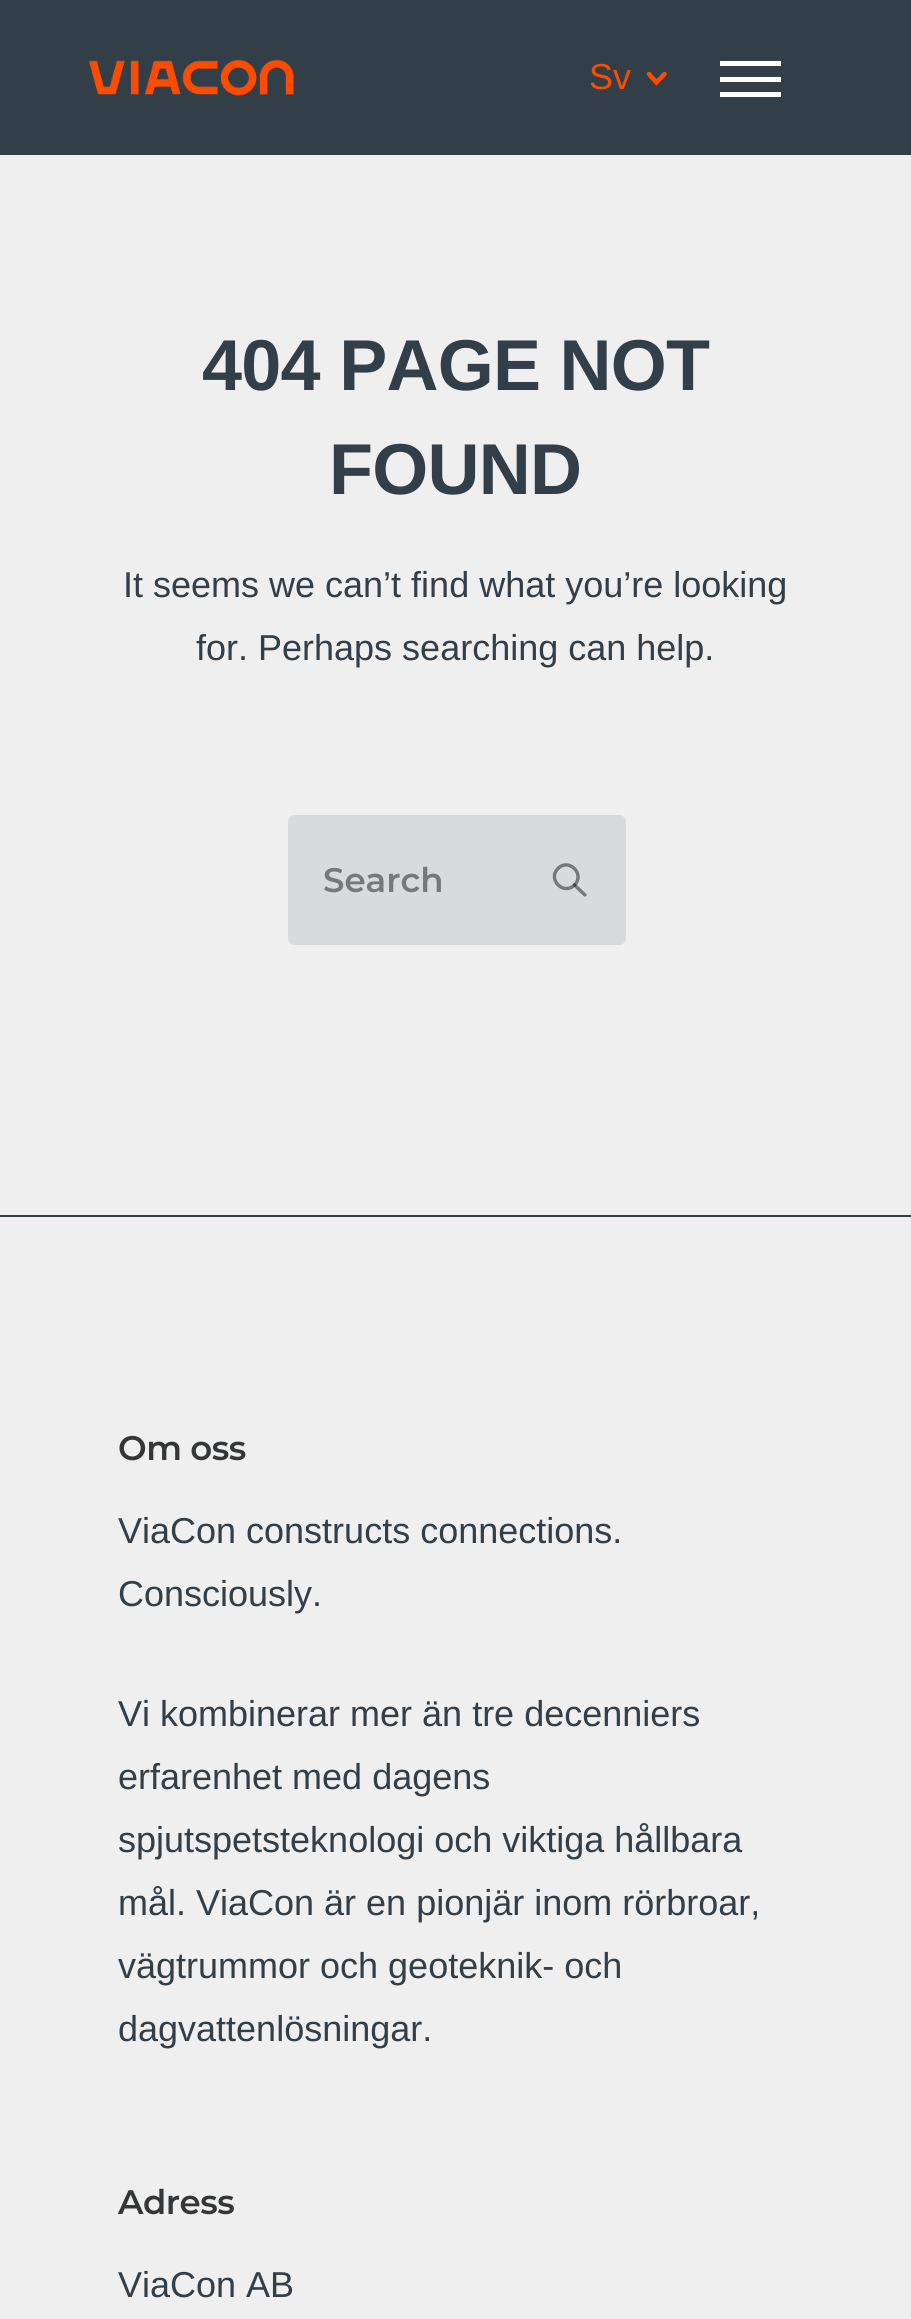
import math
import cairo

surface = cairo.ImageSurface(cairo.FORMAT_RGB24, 911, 2319)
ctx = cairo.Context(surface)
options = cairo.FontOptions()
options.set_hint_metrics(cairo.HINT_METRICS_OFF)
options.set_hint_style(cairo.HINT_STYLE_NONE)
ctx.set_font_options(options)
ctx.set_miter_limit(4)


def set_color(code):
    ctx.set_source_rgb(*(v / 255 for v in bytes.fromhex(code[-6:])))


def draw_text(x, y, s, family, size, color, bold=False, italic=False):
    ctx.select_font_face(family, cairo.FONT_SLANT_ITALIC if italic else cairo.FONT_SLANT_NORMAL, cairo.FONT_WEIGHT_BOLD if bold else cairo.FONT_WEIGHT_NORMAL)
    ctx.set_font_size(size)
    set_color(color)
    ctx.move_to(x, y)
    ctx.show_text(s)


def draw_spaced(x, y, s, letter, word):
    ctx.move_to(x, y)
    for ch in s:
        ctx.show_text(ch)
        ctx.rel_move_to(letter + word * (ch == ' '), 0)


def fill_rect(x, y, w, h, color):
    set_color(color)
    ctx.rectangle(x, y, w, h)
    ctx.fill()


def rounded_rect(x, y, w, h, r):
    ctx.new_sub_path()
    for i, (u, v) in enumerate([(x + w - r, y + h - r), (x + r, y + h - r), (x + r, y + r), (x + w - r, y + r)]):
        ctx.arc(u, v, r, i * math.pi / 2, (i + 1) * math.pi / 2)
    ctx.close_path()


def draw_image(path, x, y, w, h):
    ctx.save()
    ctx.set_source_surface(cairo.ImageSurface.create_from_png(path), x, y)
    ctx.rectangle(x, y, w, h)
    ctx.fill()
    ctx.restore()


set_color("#efefef")
ctx.paint()
fill_rect(0, 0, 911, 155, "#333f48")
draw_image("assets/img1.png", 88, 59, 206, 37)
draw_text(589, 89, "Sv", "Liberation Sans", 36, "#fc4c02")
ctx.save()
ctx.rectangle(646, 72, 22, 14)
ctx.clip()
ctx.new_path()
ctx.move_to(664.5, 74)
ctx.line_to(656.5, 82.5)
ctx.line_to(649, 74)
ctx.set_line_width(4.5)
ctx.set_line_cap(cairo.LINE_CAP_ROUND)
ctx.stroke()
ctx.restore()
fill_rect(720, 61, 61, 5, "#ffffff")
fill_rect(720, 77, 61, 5, "#ffffff")
fill_rect(720, 92, 61, 5, "#ffffff")
ctx.select_font_face("Liberation Sans", cairo.FONT_SLANT_NORMAL, cairo.FONT_WEIGHT_BOLD)
ctx.set_font_size(72)
set_color("#333f48")
draw_spaced(202, 390, "404 PAGE NOT", -0.75, 0)
draw_spaced(329, 494, "FOUND", -0.75, 0)
draw_text(123, 597, "It seems we can’t find what you’re looking", "Liberation Sans", 36, "#333f48")
draw_text(196, 660, "for. Perhaps searching can help.", "Liberation Sans", 36, "#333f48")
set_color("#d8dadb")
rounded_rect(288, 815, 338, 130, 7)
ctx.fill()
draw_text(323, 892, "Search", "Montserrat SemiBold", 34, "#777878")
ctx.new_path()
ctx.move_to(558, 868.5)
ctx.curve_to(568.5, 857.5, 585.5, 874, 574.5, 885)
ctx.curve_to(563.5, 896, 547, 879, 558, 868.5)
ctx.close_path()
ctx.set_line_width(3.4)
ctx.stroke()
ctx.new_path()
ctx.move_to(574.5, 885)
ctx.line_to(585, 895)
ctx.set_source_rgba(0, 0, 0, 0.45)
ctx.set_line_cap(cairo.LINE_CAP_ROUND)
ctx.stroke()
fill_rect(0, 1215, 911, 2, "#333f48")
set_color("#343638")
draw_spaced(118, 1460, "Om oss", -0.5, 0)
draw_text(118, 1543, "ViaCon constructs connections.", "Liberation Sans", 36, "#333f48")
draw_text(118, 1606, "Consciously.", "Liberation Sans", 36, "#333f48")
draw_text(118, 1726, "Vi kombinerar mer än tre decenniers", "Liberation Sans", 36, "#333f48")
draw_text(118, 1789, "erfarenhet med dagens", "Liberation Sans", 36, "#333f48")
draw_text(118, 1852, "spjutspetsteknologi och viktiga hållbara", "Liberation Sans", 36, "#333f48")
draw_text(118, 1915, "mål. ViaCon är en pionjär inom rörbroar,", "Liberation Sans", 36, "#333f48")
draw_text(118, 1978, "vägtrummor och geoteknik- och", "Liberation Sans", 36, "#333f48")
draw_text(118, 2041, "dagvattenlösningar.", "Liberation Sans", 36, "#333f48")
ctx.select_font_face("Montserrat SemiBold")
ctx.set_font_size(34)
set_color("#343638")
draw_spaced(118, 2214, "Adress", -0.5, 0)
draw_text(118, 2297, "ViaCon AB", "Liberation Sans", 36, "#333f48")
surface.write_to_png("output.png")
